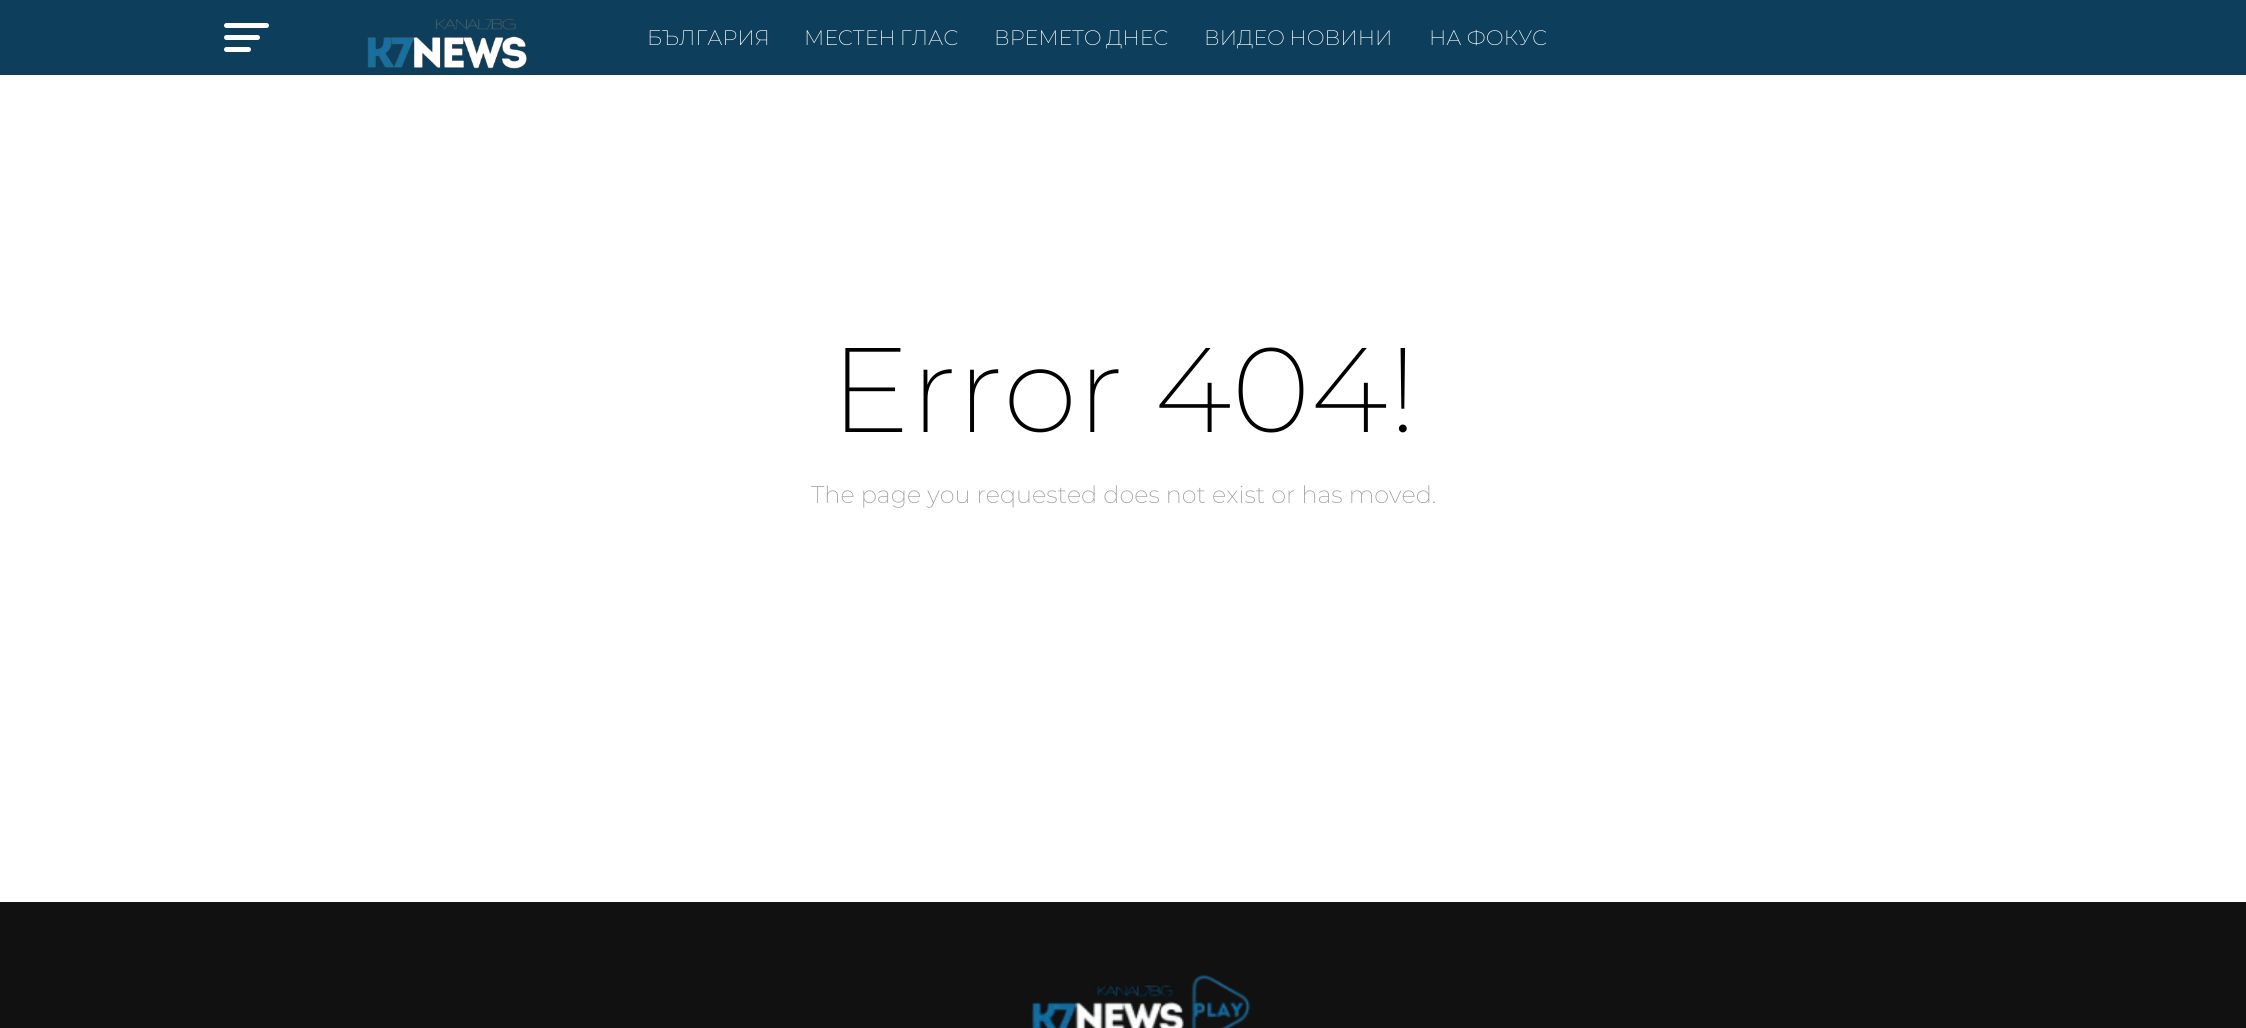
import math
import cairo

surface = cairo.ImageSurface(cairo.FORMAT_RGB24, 2246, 1028)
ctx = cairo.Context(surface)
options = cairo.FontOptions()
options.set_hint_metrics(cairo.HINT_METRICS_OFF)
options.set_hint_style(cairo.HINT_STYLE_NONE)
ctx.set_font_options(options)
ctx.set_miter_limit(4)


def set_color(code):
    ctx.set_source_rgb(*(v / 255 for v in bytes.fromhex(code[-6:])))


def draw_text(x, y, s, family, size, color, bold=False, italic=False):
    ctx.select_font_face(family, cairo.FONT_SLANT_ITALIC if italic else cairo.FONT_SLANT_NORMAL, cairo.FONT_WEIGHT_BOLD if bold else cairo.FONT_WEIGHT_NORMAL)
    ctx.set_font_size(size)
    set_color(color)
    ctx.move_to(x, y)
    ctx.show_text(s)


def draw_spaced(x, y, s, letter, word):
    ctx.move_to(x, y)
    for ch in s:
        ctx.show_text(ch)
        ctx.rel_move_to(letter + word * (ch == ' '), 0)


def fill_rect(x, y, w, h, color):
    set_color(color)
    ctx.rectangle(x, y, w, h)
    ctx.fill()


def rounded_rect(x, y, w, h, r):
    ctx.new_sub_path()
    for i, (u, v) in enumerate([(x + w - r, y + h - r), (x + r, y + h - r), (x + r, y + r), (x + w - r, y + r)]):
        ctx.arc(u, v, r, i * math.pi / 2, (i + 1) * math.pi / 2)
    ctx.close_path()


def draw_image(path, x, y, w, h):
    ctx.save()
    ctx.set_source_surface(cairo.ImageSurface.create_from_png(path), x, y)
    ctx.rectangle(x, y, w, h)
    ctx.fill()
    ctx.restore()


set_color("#ffffff")
ctx.paint()
fill_rect(0, 0, 2246, 75, "#0d3e5c")
set_color("#ffffff")
rounded_rect(224, 23, 45, 5, 2.5)
ctx.fill()
rounded_rect(224, 35, 36, 5, 2.5)
ctx.fill()
rounded_rect(224, 47, 27, 5, 2.5)
ctx.fill()
draw_image("assets/img1.png", 367, 18, 160, 51)
draw_text(647, 45, "БЪЛГАРИЯ", "Montserrat ExtraLight", 21, "#ffffff")
draw_spaced(804, 45, "МЕСТЕН ГЛАС", 0, -1)
draw_spaced(994, 45, "ВРЕМЕТО ДНЕС", 0, -1)
draw_spaced(1204, 45, "ВИДЕО НОВИНИ", 0, -1)
draw_text(1429, 45, "НА ФОКУС", "Montserrat ExtraLight", 21, "#ffffff")
draw_text(830, 432, "Error 404!", "Montserrat ExtraLight", 120, "#000000")
draw_text(811, 503, "The page you requested does not exist or has moved.", "Montserrat ExtraLight", 24, "#999999")
fill_rect(0, 902, 2246, 126, "#111111")
draw_image("assets/img2.png", 1031, 974, 220, 54)
surface.write_to_png("output.png")
